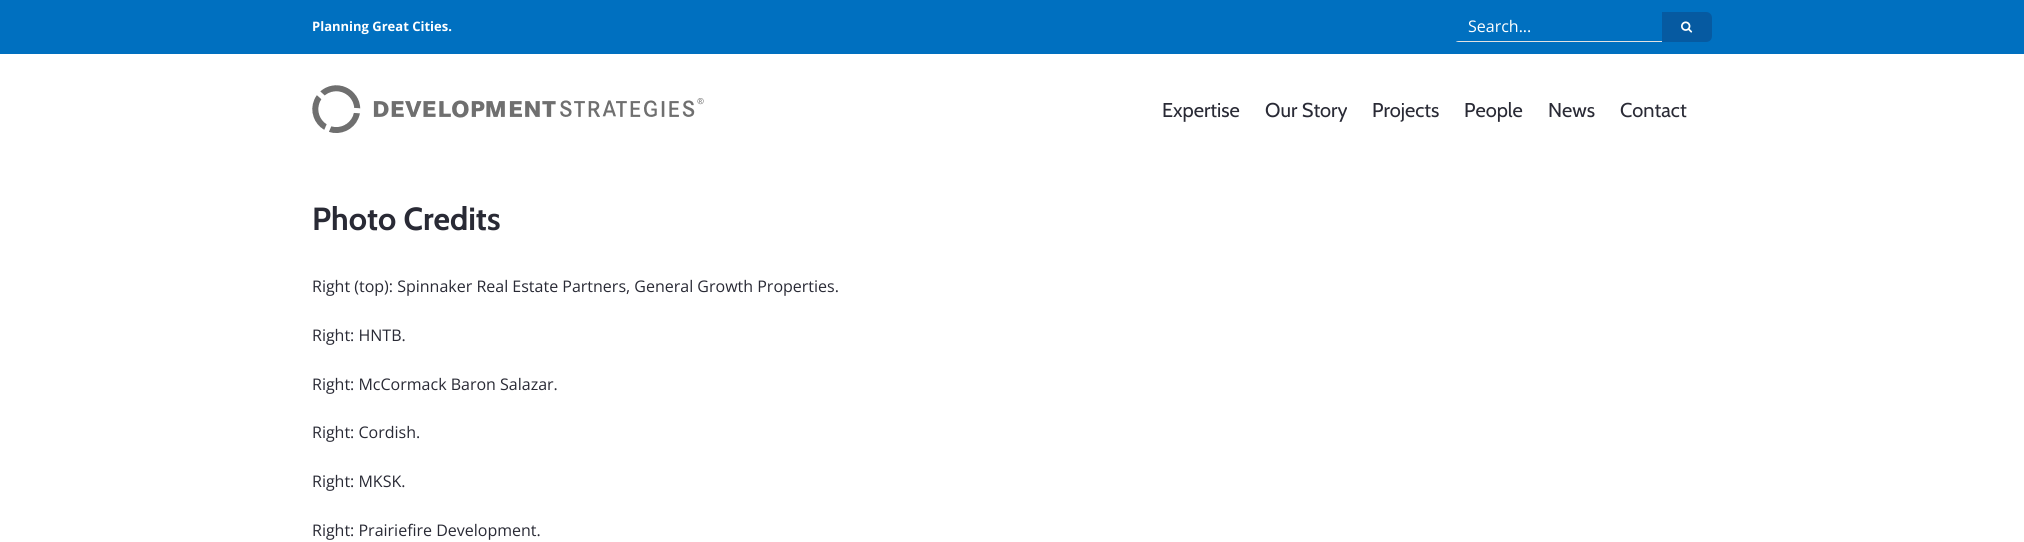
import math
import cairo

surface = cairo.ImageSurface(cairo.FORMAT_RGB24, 2024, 542)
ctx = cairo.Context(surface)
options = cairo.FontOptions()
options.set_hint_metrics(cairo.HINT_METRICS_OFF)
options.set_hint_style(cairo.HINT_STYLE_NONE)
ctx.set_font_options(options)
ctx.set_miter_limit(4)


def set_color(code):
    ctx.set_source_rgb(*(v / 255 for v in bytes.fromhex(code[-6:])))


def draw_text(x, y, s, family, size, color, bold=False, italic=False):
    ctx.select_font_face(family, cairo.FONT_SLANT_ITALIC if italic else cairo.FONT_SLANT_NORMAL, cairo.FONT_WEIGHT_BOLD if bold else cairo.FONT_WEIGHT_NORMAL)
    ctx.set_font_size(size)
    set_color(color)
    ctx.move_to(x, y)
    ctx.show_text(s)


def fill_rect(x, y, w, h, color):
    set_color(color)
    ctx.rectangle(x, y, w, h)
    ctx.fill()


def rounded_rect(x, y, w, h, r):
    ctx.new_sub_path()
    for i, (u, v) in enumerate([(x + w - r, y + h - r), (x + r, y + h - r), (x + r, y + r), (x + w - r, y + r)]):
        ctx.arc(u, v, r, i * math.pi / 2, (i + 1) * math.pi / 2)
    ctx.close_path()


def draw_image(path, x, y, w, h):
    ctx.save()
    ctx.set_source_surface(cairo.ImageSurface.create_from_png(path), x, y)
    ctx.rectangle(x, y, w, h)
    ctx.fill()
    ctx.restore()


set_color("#ffffff")
ctx.paint()
fill_rect(0, 0, 2024, 54, "#0070c0")
draw_text(312, 31, "Planning Great Cities.", "Open Sans", 13, "#ffffff", bold=True)
ctx.save()
rounded_rect(1453, 12, 259, 30, 6)
ctx.clip()
fill_rect(1453, 41, 209, 1, "#e2e2e2")
ctx.restore()
draw_text(1468, 32, "Search...", "Open Sans", 16, "#ffffff")
set_color("#065aa1")
ctx.new_path()
ctx.move_to(1662, 12)
ctx.line_to(1706, 12)
ctx.curve_to(1709.5, 12, 1712, 14.5, 1712, 18)
ctx.line_to(1712, 36)
ctx.curve_to(1712, 39.5, 1709.5, 42, 1706, 42)
ctx.line_to(1662, 42)
ctx.close_path()
ctx.fill()
draw_image("assets/img1.png", 1681, 21, 12, 12)
draw_image("assets/img2.png", 312, 85, 392, 48)
draw_text(1162, 117, "Expertise", "Cabin", 20, "#292a35")
draw_text(1265, 117, "Our Story", "Cabin", 20, "#292a35")
draw_text(1372, 117, "Projects", "Cabin", 20, "#292a35")
draw_text(1464, 117, "People", "Cabin", 20, "#292a35")
draw_text(1548, 117, "News", "Cabin", 20, "#292a35")
draw_text(1620, 117, "Contact", "Cabin", 20, "#292a35")
draw_text(312, 230, "Photo Credits", "Cabin", 32, "#292a35", bold=True)
draw_text(312, 292, "Right (top): Spinnaker Real Estate Partners, General Growth Properties.", "Open Sans", 16, "#292a35")
draw_text(312, 341, "Right: HNTB.", "Open Sans", 16, "#292a35")
draw_text(312, 390, "Right: McCormack Baron Salazar.", "Open Sans", 16, "#292a35")
draw_text(312, 438, "Right: Cordish.", "Open Sans", 16, "#292a35")
draw_text(312, 487, "Right: MKSK.", "Open Sans", 16, "#292a35")
draw_text(312, 536, "Right: Prairiefire Development.", "Open Sans", 16, "#292a35")
surface.write_to_png("output.png")
